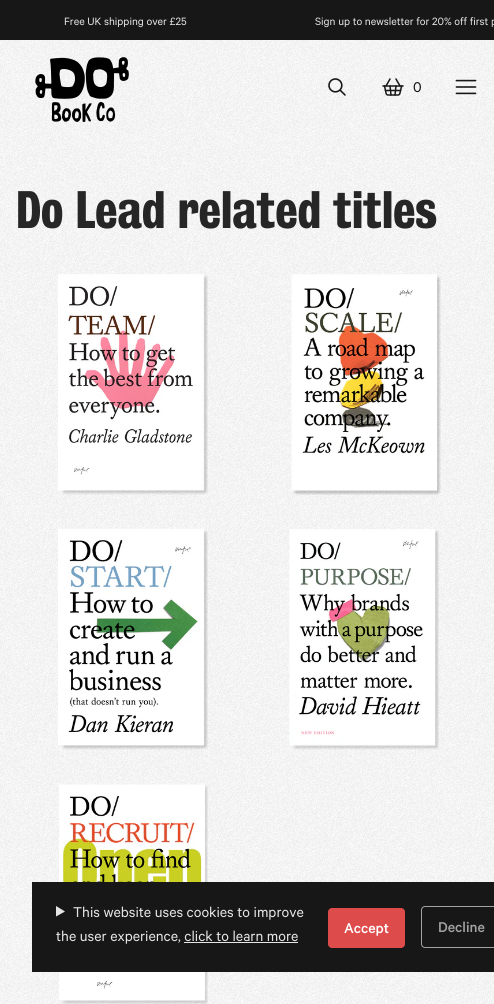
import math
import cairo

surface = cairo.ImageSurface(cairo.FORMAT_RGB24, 494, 1004)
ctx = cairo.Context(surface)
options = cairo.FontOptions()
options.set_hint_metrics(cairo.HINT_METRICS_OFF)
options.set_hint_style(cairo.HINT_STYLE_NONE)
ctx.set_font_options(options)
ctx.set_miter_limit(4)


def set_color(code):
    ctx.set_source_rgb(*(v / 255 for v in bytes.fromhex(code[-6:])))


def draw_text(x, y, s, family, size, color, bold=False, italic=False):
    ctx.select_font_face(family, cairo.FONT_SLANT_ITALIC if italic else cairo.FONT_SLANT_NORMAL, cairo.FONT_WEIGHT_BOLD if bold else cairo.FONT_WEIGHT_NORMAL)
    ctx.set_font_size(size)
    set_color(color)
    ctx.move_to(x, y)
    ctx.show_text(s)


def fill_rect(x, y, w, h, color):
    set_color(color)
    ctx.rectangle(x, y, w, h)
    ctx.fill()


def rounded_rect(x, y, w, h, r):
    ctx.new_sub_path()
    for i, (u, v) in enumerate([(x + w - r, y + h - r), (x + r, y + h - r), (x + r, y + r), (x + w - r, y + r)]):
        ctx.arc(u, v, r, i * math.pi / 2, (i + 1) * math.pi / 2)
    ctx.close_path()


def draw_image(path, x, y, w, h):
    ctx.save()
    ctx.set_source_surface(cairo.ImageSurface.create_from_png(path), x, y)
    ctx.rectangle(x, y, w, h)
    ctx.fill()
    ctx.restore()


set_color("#ffffff")
ctx.paint()
draw_image("assets/img1.png", 0, 40, 494, 964)
fill_rect(0, 0, 494, 40, "#171717")
draw_text(64, 25, "Free UK shipping over £25", "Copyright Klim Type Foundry", 12, "#e5e5e5")
draw_text(315, 25, "Sign up to newsletter for 20% off first p", "Copyright Klim Type Foundry", 12, "#e5e5e5")
draw_image("assets/img2.png", 35, 57, 94, 65)
draw_image("assets/img3.png", 328, 78, 18, 18)
draw_image("assets/img4.png", 382, 78, 22, 18)
draw_text(413, 92, "0", "Copyright Klim Type Foundry", 16, "#171717")
draw_image("assets/img5.png", 455, 79, 22, 16)
draw_text(16, 228, "Do Lead related titles", "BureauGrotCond", 48, "#262626", bold=True)
draw_image("assets/img6.png", 58, 274, 150, 221)
draw_image("assets/img7.png", 291, 274, 150, 221)
draw_image("assets/img8.png", 58, 528, 150, 222)
draw_image("assets/img9.png", 289, 529, 150, 221)
draw_image("assets/img10.png", 59, 784, 149, 220)
fill_rect(32, 882, 462, 90, "#171717")
set_color("#e5e5e5")
ctx.new_path()
ctx.move_to(56, 906)
ctx.line_to(65, 911.5)
ctx.line_to(56, 916.5)
ctx.close_path()
ctx.fill()
draw_text(73, 917, "This website uses cookies to improve", "Copyright Klim Type Foundry", 16, "#e5e5e5")
draw_text(56, 941, "the user experience, click to learn more", "Copyright Klim Type Foundry", 16, "#e5e5e5")
fill_rect(184, 942, 114, 1, "#e5e5e5")
set_color("#dd4b4b")
rounded_rect(328, 908, 77, 40, 4)
ctx.fill()
draw_text(344, 933, "Accept", "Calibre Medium", 16, "#ffffff")
rounded_rect(421.5, 906.5, 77, 41, 3.5)
set_color("#a3a3a3")
ctx.set_line_width(1)
ctx.stroke()
draw_text(438, 932, "Decline", "Calibre Medium", 16, "#a3a3a3")
surface.write_to_png("output.png")
